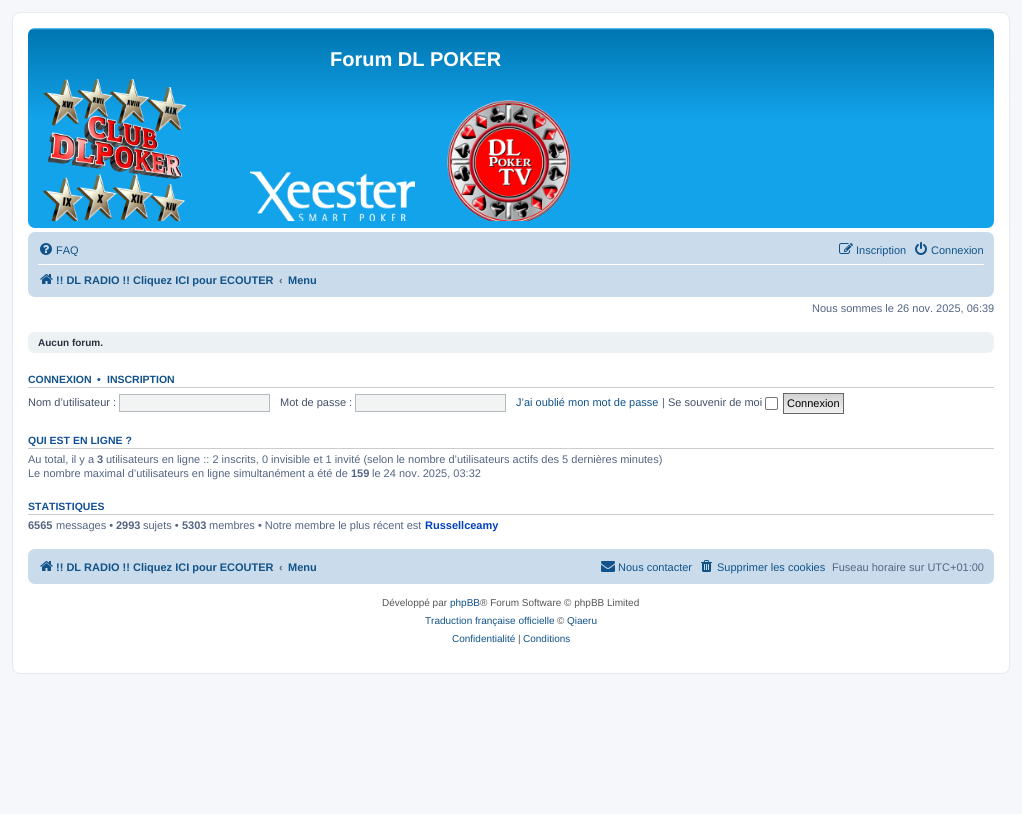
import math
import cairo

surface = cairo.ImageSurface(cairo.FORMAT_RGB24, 1022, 814)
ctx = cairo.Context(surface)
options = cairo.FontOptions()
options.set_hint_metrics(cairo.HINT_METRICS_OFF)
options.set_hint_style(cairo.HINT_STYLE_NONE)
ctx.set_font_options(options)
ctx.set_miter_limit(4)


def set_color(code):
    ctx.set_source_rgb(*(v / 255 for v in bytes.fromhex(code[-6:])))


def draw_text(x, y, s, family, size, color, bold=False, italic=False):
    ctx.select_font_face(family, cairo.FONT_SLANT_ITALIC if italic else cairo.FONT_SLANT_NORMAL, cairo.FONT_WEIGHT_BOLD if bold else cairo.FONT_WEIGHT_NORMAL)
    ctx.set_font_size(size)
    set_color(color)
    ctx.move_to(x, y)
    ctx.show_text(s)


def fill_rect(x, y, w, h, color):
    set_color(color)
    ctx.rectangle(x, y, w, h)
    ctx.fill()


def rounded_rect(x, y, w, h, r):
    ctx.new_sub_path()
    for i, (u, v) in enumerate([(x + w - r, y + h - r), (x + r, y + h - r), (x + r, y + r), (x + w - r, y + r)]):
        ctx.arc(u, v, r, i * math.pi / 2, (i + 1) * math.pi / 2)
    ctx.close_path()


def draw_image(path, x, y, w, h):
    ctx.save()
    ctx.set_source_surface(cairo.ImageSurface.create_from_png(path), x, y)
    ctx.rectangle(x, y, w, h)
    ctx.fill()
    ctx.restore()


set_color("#f5f7fa")
ctx.paint()
set_color("#ffffff")
rounded_rect(12.5, 12.5, 997, 661, 7.5)
ctx.fill_preserve()
set_color("#e6e9ed")
ctx.set_line_width(1)
ctx.stroke()
gradient = cairo.LinearGradient(511, 28, 511, 228)
gradient.add_color_stop_rgba(0, 0.416, 0.808, 1, 1)
gradient.add_color_stop_rgba(0.01, 0, 0.463, 0.694, 1)
gradient.add_color_stop_rgba(0.46, 0.071, 0.639, 0.922, 1)
gradient.add_color_stop_rgba(1, 0.071, 0.639, 0.922, 1)
ctx.set_source(gradient)
rounded_rect(28, 28, 966, 200, 7)
ctx.fill()
draw_text(330, 66, "Forum DL POKER", "Liberation Sans", 20, "#ffffff", bold=True)
draw_image("assets/img1.png", 42, 79, 529, 142)
set_color("#cadceb")
rounded_rect(28, 232, 966, 65, 7)
ctx.fill()
draw_image("assets/img2.png", 40, 243, 12, 12)
draw_text(56, 254, "FAQ", "Liberation Sans", 11, "#105289")
draw_image("assets/img3.png", 839, 243, 14, 11)
draw_text(856, 254, "Inscription", "Liberation Sans", 11, "#105289")
draw_image("assets/img4.png", 915, 242, 12, 13)
draw_text(931, 254, "Connexion", "Liberation Sans", 11, "#105289")
fill_rect(38, 264, 946, 1, "#ffffff")
draw_image("assets/img5.png", 40, 274, 13, 10)
draw_text(56, 284, "!! DL RADIO !! Cliquez ICI pour ECOUTER", "Liberation Sans", 11, "#105289", bold=True)
draw_text(279, 284, "‹", "Liberation Sans", 11, "#536482", bold=True)
draw_text(288, 284, "Menu", "Liberation Sans", 11, "#105289", bold=True)
draw_text(812, 312, "Nous sommes le 26 nov. 2025, 06:39", "Liberation Sans", 11, "#536482")
set_color("#ecf1f3")
rounded_rect(28, 332, 966, 21, 7)
ctx.fill()
draw_text(38, 346, "Aucun forum.", "Liberation Sans", 10, "#28313f", bold=True)
fill_rect(28, 387, 966, 1, "#cccccc")
draw_text(28, 383, "CONNEXION", "Liberation Sans", 10.5, "#105289", bold=True)
draw_text(97, 383, "•", "Liberation Sans", 10.5, "#115098", bold=True)
draw_text(107, 383, "INSCRIPTION", "Liberation Sans", 10.5, "#105289", bold=True)
draw_text(28, 406, "Nom d’utilisateur :", "Liberation Sans", 11, "#425067")
set_color("#f2f3f3")
ctx.rectangle(119.5, 394.5, 150, 17)
ctx.fill_preserve()
set_color("#b4bac0")
ctx.stroke()
draw_text(280, 406, "Mot de passe :", "Liberation Sans", 11, "#425067")
set_color("#f2f3f3")
ctx.rectangle(355.5, 394.5, 150, 17)
ctx.fill_preserve()
set_color("#b4bac0")
ctx.stroke()
draw_text(516, 406, "J’ai oublié mon mot de passe", "Liberation Sans", 11, "#105289")
draw_text(662, 406, "|", "Liberation Sans", 11, "#536482")
draw_text(668, 406, "Se souvenir de moi", "Liberation Sans", 11, "#425067")
rounded_rect(765.5, 397.5, 12, 12, 1.5)
set_color("#767676")
ctx.stroke()
gradient = cairo.LinearGradient(814, 394, 814, 413)
gradient.add_color_stop_rgba(0, 0.824, 0.824, 0.824, 1)
gradient.add_color_stop_rgba(1, 0.937, 0.937, 0.937, 1)
ctx.set_source(gradient)
ctx.rectangle(784, 394, 59, 19)
ctx.fill()
ctx.rectangle(783.5, 393.5, 60, 20)
set_color("#666666")
ctx.stroke()
draw_text(787, 407, "Connexion", "Liberation Sans", 11, "#000000")
fill_rect(28, 448, 966, 1, "#cccccc")
draw_text(28, 444, "QUI EST EN LIGNE ?", "Liberation Sans", 10.5, "#115098", bold=True)
draw_text(28, 463, "Au total, il y a", "Liberation Sans", 11, "#536482")
draw_text(97, 463, "3", "Liberation Sans", 11, "#536482", bold=True)
draw_text(106, 463, "utilisateurs en ligne :: 2 inscrits, 0 invisible et 1 invité (selon le nombre d’utilisateurs actifs des 5 dernières minutes)", "Liberation Sans", 11, "#536482")
draw_text(28, 477, "Le nombre maximal d’utilisateurs en ligne simultanément a été de", "Liberation Sans", 11, "#536482")
draw_text(351, 477, "159", "Liberation Sans", 11, "#536482", bold=True)
draw_text(372, 477, "le 24 nov. 2025, 03:32", "Liberation Sans", 11, "#536482")
fill_rect(28, 514, 966, 1, "#cccccc")
draw_text(28, 510, "STATISTIQUES", "Liberation Sans", 10.5, "#115098", bold=True)
draw_text(28, 529, "6565", "Liberation Sans", 11, "#536482", bold=True)
draw_text(56, 529, "messages •", "Liberation Sans", 11, "#536482")
draw_text(116, 529, "2993", "Liberation Sans", 11, "#536482", bold=True)
draw_text(143, 529, "sujets •", "Liberation Sans", 11, "#536482")
draw_text(182, 529, "5303", "Liberation Sans", 11, "#536482", bold=True)
draw_text(209, 529, "membres • Notre membre le plus récent est", "Liberation Sans", 11, "#536482")
draw_text(425, 529, "Russellceamy", "Liberation Sans", 11, "#0040bf", bold=True)
set_color("#cadceb")
rounded_rect(28, 549, 966, 35, 7)
ctx.fill()
draw_image("assets/img5.png", 40, 561, 13, 10)
draw_text(56, 571, "!! DL RADIO !! Cliquez ICI pour ECOUTER", "Liberation Sans", 11, "#105289", bold=True)
draw_text(279, 571, "‹", "Liberation Sans", 11, "#536482", bold=True)
draw_text(288, 571, "Menu", "Liberation Sans", 11, "#105289", bold=True)
draw_image("assets/img6.png", 601, 561, 14, 11)
draw_text(618, 571, "Nous contacter", "Liberation Sans", 11, "#105289")
draw_image("assets/img7.png", 701, 560, 11, 12)
draw_text(717, 571, "Supprimer les cookies", "Liberation Sans", 11, "#105289")
draw_text(832, 571, "Fuseau horaire sur UTC+01:00", "Liberation Sans", 11, "#536482")
draw_text(382, 606, "Développé par", "Liberation Sans", 10, "#555555")
draw_text(450, 606, "phpBB", "Liberation Sans", 10, "#105289")
draw_text(480, 606, "® Forum Software © phpBB Limited", "Liberation Sans", 10, "#555555")
draw_text(425, 624, "Traduction française officielle", "Liberation Sans", 10, "#105289")
draw_text(557, 624, "©", "Liberation Sans", 10, "#555555")
draw_text(567, 624, "Qiaeru", "Liberation Sans", 10, "#105289")
draw_text(452, 642, "Confidentialité", "Liberation Sans", 10, "#105289")
draw_text(518, 642, "|", "Liberation Sans", 10, "#555555")
draw_text(523, 642, "Conditions", "Liberation Sans", 10, "#105289")
surface.write_to_png("output.png")
